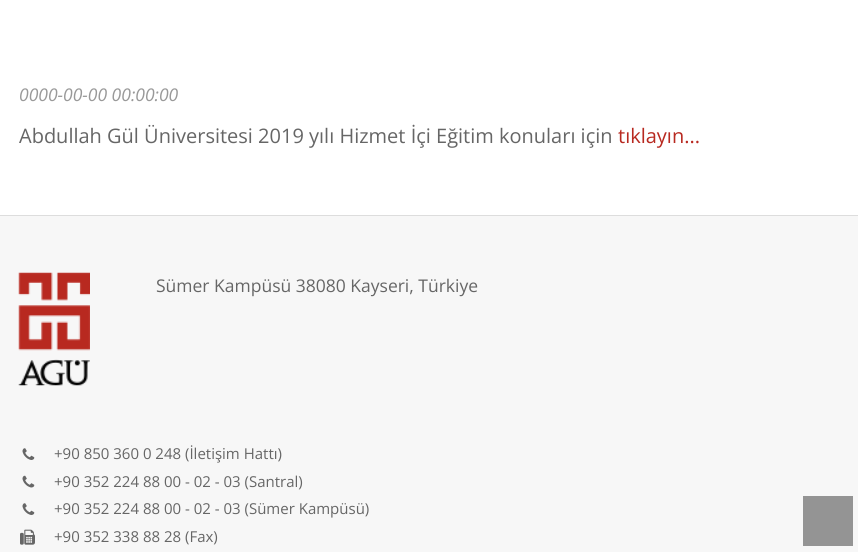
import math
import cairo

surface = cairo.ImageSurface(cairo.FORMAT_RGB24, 858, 552)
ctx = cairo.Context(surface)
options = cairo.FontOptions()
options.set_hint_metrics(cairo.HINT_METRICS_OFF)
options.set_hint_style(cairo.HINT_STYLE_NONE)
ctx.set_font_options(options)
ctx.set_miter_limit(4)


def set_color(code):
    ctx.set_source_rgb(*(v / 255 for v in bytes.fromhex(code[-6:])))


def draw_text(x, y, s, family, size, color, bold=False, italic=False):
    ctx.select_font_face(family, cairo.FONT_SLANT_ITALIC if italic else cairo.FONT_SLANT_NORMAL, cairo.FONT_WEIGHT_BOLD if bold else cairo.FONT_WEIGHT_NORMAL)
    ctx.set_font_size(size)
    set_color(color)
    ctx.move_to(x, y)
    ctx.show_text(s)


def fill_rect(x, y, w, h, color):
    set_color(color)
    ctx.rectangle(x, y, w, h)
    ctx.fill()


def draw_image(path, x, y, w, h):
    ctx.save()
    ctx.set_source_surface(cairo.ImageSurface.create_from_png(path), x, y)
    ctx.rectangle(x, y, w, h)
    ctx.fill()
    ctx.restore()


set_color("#ffffff")
ctx.paint()
draw_text(19, 101, "0000-00-00 00:00:00", "Open Sans", 17.5, "#999999", italic=True)
draw_text(19, 143, "Abdullah Gül Üniversitesi 2019 yılı Hizmet İçi Eğitim konuları için", "Open Sans", 20, "#666666")
draw_text(618, 143, "tıklayın...", "Open Sans", 20, "#b82920")
fill_rect(0, 216, 858, 336, "#f7f7f7")
fill_rect(0, 215, 858, 1, "#dddddd")
draw_image("assets/img1.png", 18, 272, 72, 114)
draw_text(156, 292, "Sümer Kampüsü 38080 Kayseri, Türkiye", "Open Sans", 17.5, "#666666")
draw_image("assets/img2.png", 22, 448, 13, 12)
draw_text(54, 459, "+90 850 360 0 248 (İletişim Hattı)", "Open Sans", 15, "#666666")
draw_image("assets/img3.png", 22, 475, 13, 13)
draw_text(54, 487, "+90 352 224 88 00 - 02 - 03 (Santral)", "Open Sans", 15, "#666666")
draw_image("assets/img2.png", 22, 503, 13, 12)
draw_text(54, 514, "+90 352 224 88 00 - 02 - 03 (Sümer Kampüsü)", "Open Sans", 15, "#666666")
draw_image("assets/img4.png", 20, 529, 15, 16)
draw_text(54, 542, "+90 352 338 88 28 (Fax)", "Open Sans", 15, "#666666")
fill_rect(803, 496, 50, 50, "#949494")
surface.write_to_png("output.png")
